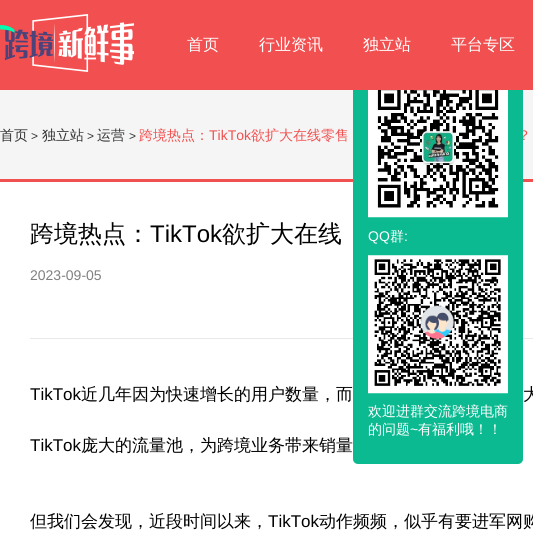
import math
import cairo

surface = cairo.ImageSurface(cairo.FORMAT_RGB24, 533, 554)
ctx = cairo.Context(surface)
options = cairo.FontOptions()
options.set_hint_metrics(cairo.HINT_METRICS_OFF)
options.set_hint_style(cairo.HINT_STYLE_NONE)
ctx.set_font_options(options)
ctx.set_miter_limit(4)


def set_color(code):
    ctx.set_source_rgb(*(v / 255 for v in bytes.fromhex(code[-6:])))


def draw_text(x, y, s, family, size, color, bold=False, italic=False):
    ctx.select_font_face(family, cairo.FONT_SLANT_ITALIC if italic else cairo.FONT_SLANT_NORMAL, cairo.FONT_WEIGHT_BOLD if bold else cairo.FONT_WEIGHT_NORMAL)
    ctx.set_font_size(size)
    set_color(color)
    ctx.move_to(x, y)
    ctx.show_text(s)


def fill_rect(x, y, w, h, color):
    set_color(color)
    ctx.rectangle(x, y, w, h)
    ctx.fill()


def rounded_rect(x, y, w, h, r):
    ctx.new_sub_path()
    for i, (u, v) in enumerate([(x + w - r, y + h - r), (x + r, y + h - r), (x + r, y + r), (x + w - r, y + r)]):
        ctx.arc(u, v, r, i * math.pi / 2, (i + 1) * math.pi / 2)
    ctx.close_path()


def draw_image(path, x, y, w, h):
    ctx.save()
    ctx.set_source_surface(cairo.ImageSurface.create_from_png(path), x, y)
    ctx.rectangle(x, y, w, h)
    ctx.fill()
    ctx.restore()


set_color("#f5f5f5")
ctx.paint()
fill_rect(0, 0, 167, 90, "#f24f50")
draw_image("assets/img1.png", 0, 14, 134, 58)
draw_text(517, 140, "？", "WenQuanYi Zen Hei Medium", 14, "#f15050")
fill_rect(0, 179, 533, 3, "#f15050")
fill_rect(0, 182, 533, 372, "#ffffff")
fill_rect(30, 338, 503, 1, "#e9e9e9")
set_color("#0bba91")
rounded_rect(353, 34, 170, 430, 5)
ctx.fill()
fill_rect(167, 0, 366, 90, "#f24f50")
draw_text(187, 50, "首页", "WenQuanYi Zen Hei Medium", 16, "#ffffff")
draw_text(259, 50, "行业资讯", "WenQuanYi Zen Hei Medium", 16, "#ffffff")
draw_text(363, 50, "独立站", "WenQuanYi Zen Hei Medium", 16, "#ffffff")
draw_text(451, 50, "平台专区", "WenQuanYi Zen Hei Medium", 16, "#ffffff")
draw_text(0, 140, "首页", "WenQuanYi Zen Hei Medium", 14, "#333333")
draw_text(31, 140, ">", "Liberation Sans", 12, "#333333")
draw_text(42, 140, "独立站", "WenQuanYi Zen Hei Medium", 14, "#333333")
draw_text(87, 140, ">", "Liberation Sans", 12, "#333333")
draw_text(97, 140, "运营", "WenQuanYi Zen Hei Medium", 14, "#333333")
draw_text(129, 140, ">", "Liberation Sans", 12, "#333333")
draw_text(139, 140, "跨境热点：", "WenQuanYi Zen Hei Medium", 14, "#f15050")
draw_text(209, 140, "TikTok", "Liberation Sans", 14, "#f15050")
draw_text(251, 140, "欲扩大在线零售", "WenQuanYi Zen Hei Medium", 14, "#f15050")
draw_text(30, 242, "跨境热点：", "WenQuanYi Zen Hei Medium", 24, "#000000")
draw_text(150, 242, "TikTok", "Liberation Sans", 24, "#000000")
draw_text(222, 242, "欲扩大在线", "WenQuanYi Zen Hei Medium", 24, "#000000")
draw_text(30, 280, "2023-09-05", "Liberation Sans", 14, "#808080")
draw_text(30, 400, "TikTok", "Liberation Sans", 17, "#000000")
draw_text(81, 400, "近几年因为快速增长的用户数量，而", "WenQuanYi Zen Hei Medium", 17, "#000000")
draw_text(523, 400, "大", "WenQuanYi Zen Hei Medium", 17, "#000000")
draw_text(30, 451, "TikTok", "Liberation Sans", 17, "#000000")
draw_text(81, 451, "庞大的流量池，为跨境业务带来销量", "WenQuanYi Zen Hei Medium", 17, "#000000")
draw_text(30, 527, "但我们会发现，近段时间以来，", "WenQuanYi Zen Hei Medium", 17, "#000000")
draw_text(268, 527, "TikTok", "Liberation Sans", 17, "#000000")
draw_text(319, 527, "动作频频，似乎有要进军网购", "WenQuanYi Zen Hei Medium", 17, "#000000")
draw_image("assets/img2.png", 368, 90, 140, 128)
draw_text(368, 241, "QQ", "Liberation Sans", 14, "#ffffff")
draw_text(390, 241, "群", "WenQuanYi Zen Hei Medium", 14, "#ffffff")
draw_text(404, 241, ":", "Liberation Sans", 14, "#ffffff")
draw_image("assets/img3.png", 368, 255, 140, 139)
draw_text(368, 416, "欢迎进群交流跨境电商", "WenQuanYi Zen Hei Medium", 14, "#ffffff")
draw_text(368, 434, "的问题", "WenQuanYi Zen Hei Medium", 14, "#ffffff")
draw_text(410, 434, "~", "Liberation Sans", 14, "#ffffff")
draw_text(418, 434, "有福利哦！！", "WenQuanYi Zen Hei Medium", 14, "#ffffff")
surface.write_to_png("output.png")
